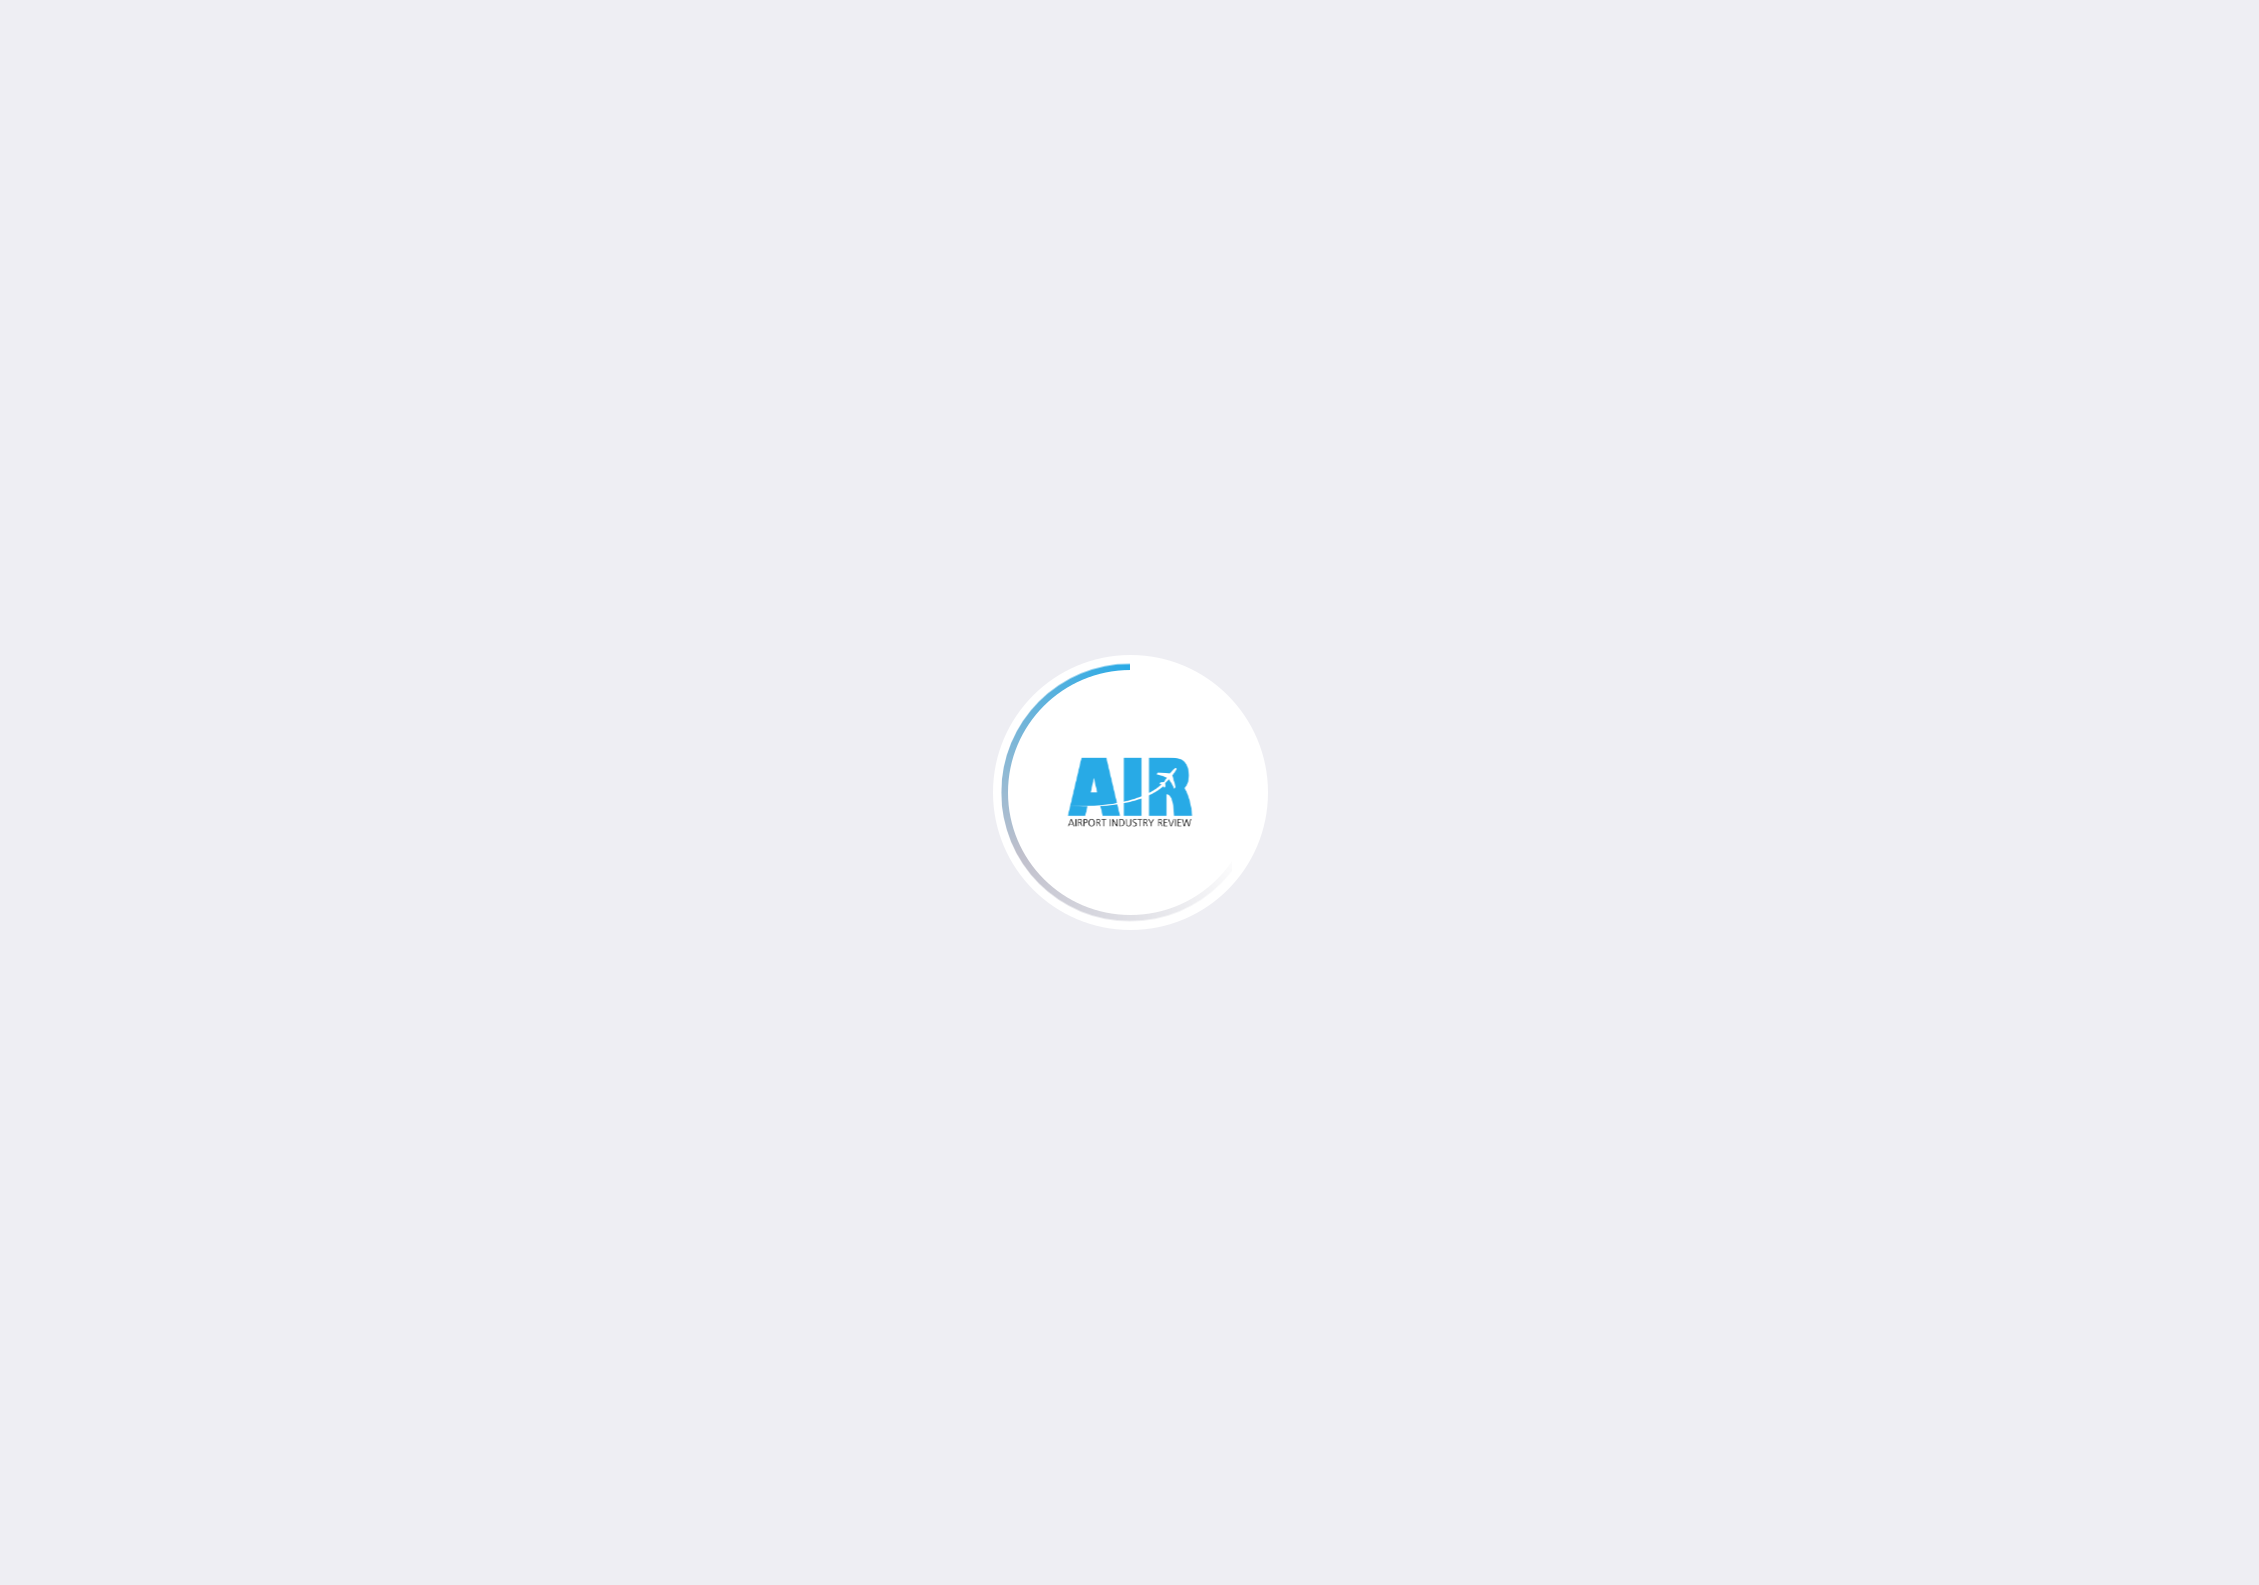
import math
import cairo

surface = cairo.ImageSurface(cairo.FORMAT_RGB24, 2259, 1585)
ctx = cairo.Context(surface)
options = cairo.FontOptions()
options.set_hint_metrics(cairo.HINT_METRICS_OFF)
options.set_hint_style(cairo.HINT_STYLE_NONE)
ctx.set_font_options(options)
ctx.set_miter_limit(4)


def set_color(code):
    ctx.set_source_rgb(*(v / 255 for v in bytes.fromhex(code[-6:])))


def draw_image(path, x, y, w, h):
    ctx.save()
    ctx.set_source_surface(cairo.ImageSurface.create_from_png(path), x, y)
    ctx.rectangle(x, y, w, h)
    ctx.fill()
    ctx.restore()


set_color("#eeeef3")
ctx.paint()
set_color("#ffffff")
ctx.arc(1130.5, 792.5, 137.5, 0, 2 * math.pi)
ctx.fill()
draw_image("assets/img1.png", 1001, 663, 231, 259)
ctx.arc(1130.5, 792.5, 122.5, 0, 2 * math.pi)
ctx.fill()
draw_image("assets/img2.png", 1067, 757, 126, 70)
surface.write_to_png("output.png")
